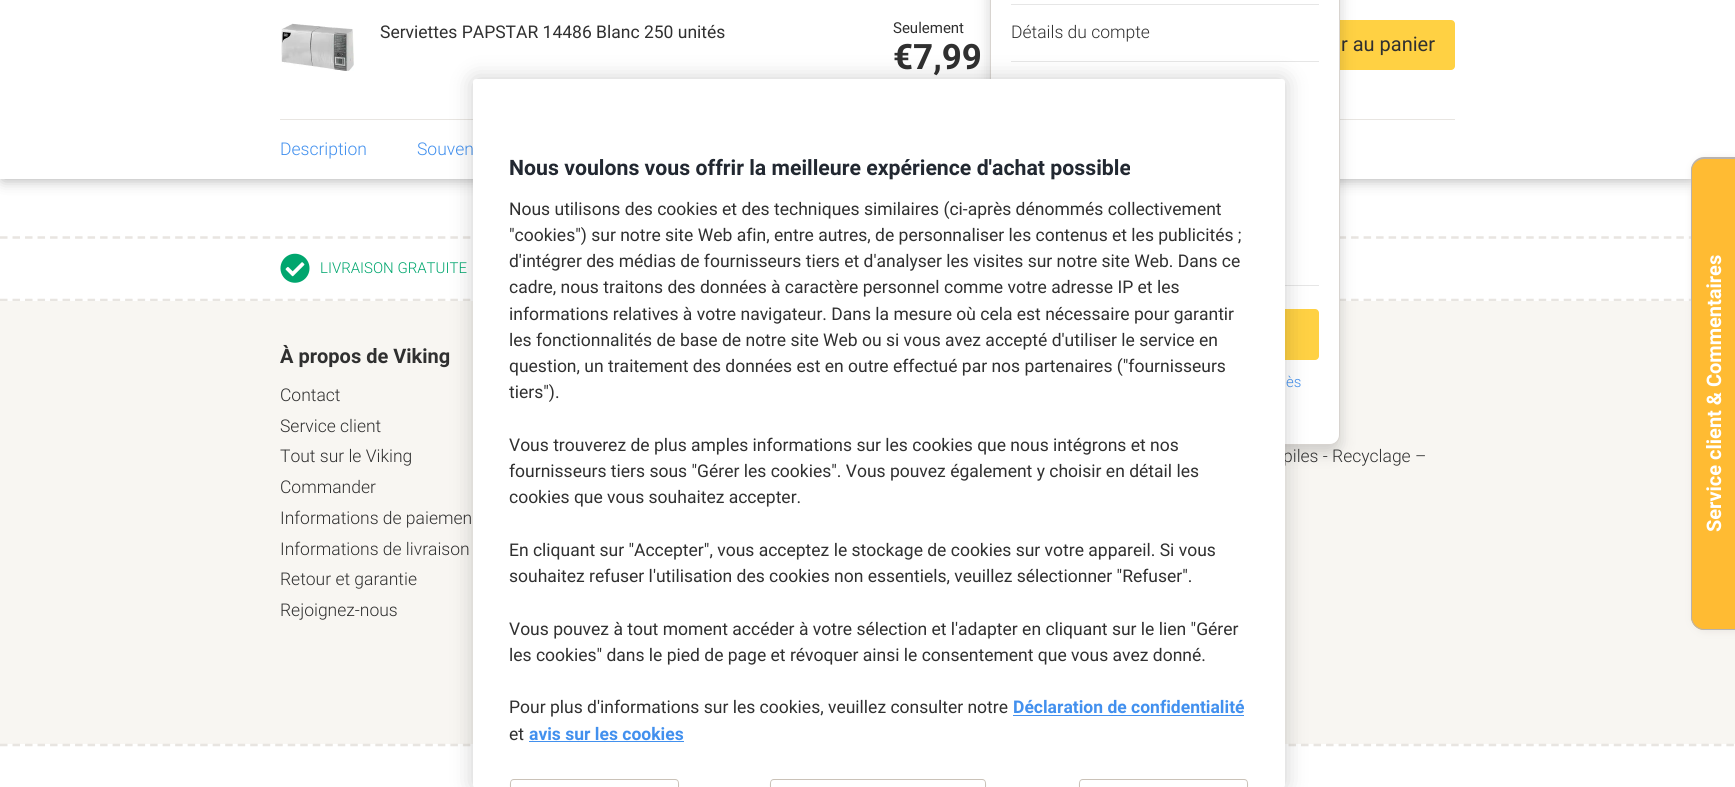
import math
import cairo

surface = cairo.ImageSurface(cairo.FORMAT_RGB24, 1735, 787)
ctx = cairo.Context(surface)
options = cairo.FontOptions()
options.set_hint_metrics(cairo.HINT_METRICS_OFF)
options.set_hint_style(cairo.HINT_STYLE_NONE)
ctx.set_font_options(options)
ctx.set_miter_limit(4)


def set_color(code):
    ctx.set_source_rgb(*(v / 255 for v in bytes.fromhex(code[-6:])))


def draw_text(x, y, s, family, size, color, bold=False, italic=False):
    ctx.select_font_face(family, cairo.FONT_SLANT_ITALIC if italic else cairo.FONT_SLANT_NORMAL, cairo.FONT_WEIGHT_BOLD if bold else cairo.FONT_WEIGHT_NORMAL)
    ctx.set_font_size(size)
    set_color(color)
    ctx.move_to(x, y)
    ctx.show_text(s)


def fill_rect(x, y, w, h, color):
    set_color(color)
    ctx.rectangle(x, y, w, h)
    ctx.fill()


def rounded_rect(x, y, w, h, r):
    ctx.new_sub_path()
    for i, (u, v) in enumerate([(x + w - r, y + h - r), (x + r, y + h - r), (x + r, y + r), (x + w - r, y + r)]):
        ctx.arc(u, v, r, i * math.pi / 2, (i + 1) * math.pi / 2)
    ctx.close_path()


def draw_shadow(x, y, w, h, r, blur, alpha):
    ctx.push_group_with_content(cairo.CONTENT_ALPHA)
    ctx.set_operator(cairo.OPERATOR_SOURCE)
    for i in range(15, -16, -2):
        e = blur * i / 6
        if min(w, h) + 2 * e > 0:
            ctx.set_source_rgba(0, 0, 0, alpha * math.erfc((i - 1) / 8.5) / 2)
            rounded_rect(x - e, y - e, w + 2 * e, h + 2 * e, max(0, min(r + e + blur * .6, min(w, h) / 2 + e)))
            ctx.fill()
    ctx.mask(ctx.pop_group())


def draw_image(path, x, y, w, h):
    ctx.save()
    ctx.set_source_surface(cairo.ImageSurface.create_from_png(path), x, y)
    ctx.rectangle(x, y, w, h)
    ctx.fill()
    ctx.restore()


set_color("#ffffff")
ctx.paint()
set_color("#000000")
draw_shadow(3, 0, 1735, 179, 0, 7.5, 0.35)
fill_rect(0, 0, 1735, 179, "#ffffff")
draw_image("assets/img1.png", 281, 23, 73, 48)
draw_text(380, 38, "Serviettes PAPSTAR 14486 Blanc 250 unités", "Roboto", 17.5, "#303030")
draw_text(893, 33, "Seulement", "Roboto", 15, "#303030")
draw_text(893, 69, "€7,99", "Roboto", 35, "#303030", bold=True)
set_color("#ffd143")
rounded_rect(1233, 20, 222, 50, 4)
ctx.fill()
draw_text(1341, 51, "r au panier", "Roboto", 20, "#303030")
fill_rect(280, 119, 1175, 1, "#e8e5e1")
draw_text(280, 155, "Description", "Roboto Light", 17.5, "#4290ee")
draw_text(417, 155, "Souven", "Roboto Light", 17.5, "#4290ee")
ctx.new_path()
ctx.move_to(0, 237.5)
ctx.line_to(1735, 237.5)
set_color("#e8e5e1")
ctx.set_line_width(2.5)
ctx.set_dash([7.5, 5.01])
ctx.stroke()
ctx.new_path()
ctx.move_to(0, 300)
ctx.line_to(1735, 300)
ctx.stroke()
fill_rect(0, 301, 1735, 443, "#f8f6f2")
set_color("#000000")
draw_shadow(990, -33, 350, 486, 10, 7.5, 0.17)
set_color("#ffffff")
rounded_rect(990.5, -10.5, 349, 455, 9.5)
ctx.fill_preserve()
set_color("#d8d4d0")
ctx.set_line_width(1)
ctx.set_dash([])
ctx.stroke()
fill_rect(1011, 4, 308, 1, "#e6e6e6")
draw_text(1011, 38, "Détails du compte", "Roboto Light", 17.5, "#303030")
fill_rect(1011, 61, 308, 1, "#e6e6e6")
fill_rect(1285, 285, 34, 1, "#e6e6e6")
set_color("#ffd143")
rounded_rect(1011, 309, 308, 51, 4)
ctx.fill()
draw_text(1286, 387, "ès", "Roboto Light", 15, "#4290ee")
draw_image("assets/img2.png", 280, 253, 30, 30)
draw_text(320, 273, "LIVRAISON GRATUITE", "Roboto Light", 15, "#00a66e")
draw_text(280, 363, "À propos de Viking", "Roboto", 20, "#303030", bold=True)
draw_text(280, 401, "Contact", "Roboto Light", 17.5, "#303030")
draw_text(280, 432, "Service client", "Roboto Light", 17.5, "#303030")
draw_text(280, 462, "Tout sur le Viking", "Roboto Light", 17.5, "#303030")
draw_text(280, 493, "Commander", "Roboto Light", 17.5, "#303030")
draw_text(280, 524, "Informations de paiemen", "Roboto Light", 17.5, "#303030")
draw_text(280, 555, "Informations de livraison", "Roboto Light", 17.5, "#303030")
draw_text(280, 585, "Retour et garantie", "Roboto Light", 17.5, "#303030")
draw_text(280, 616, "Rejoignez-nous", "Roboto Light", 17.5, "#303030")
draw_text(1283, 462, "piles - Recyclage –", "Roboto Light", 17.5, "#303030")
ctx.new_path()
ctx.move_to(0, 745)
ctx.line_to(1735, 745)
set_color("#e8e5e1")
ctx.set_line_width(2.5)
ctx.set_dash([7.5, 5.01])
ctx.stroke()
set_color("#000000")
draw_shadow(473, 79, 812, 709, 3, 11, 0.2)
set_color("#ffffff")
rounded_rect(473, 79, 812, 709, 3)
ctx.fill()
draw_text(509, 175, "Nous voulons vous offrir la meilleure expérience d'achat possible", "Roboto", 21.25, "#222831", bold=True)
draw_text(509, 215, "Nous utilisons des cookies et des techniques similaires (ci-après dénommés collectivement", "Roboto", 17.5, "#303030")
draw_text(509, 241, "\"cookies\") sur notre site Web afin, entre autres, de personnaliser les contenus et les publicités ;", "Roboto", 17.5, "#303030")
draw_text(509, 267, "d'intégrer des médias de fournisseurs tiers et d'analyser les visites sur notre site Web. Dans ce", "Roboto", 17.5, "#303030")
draw_text(509, 293, "cadre, nous traitons des données à caractère personnel comme votre adresse IP et les", "Roboto", 17.5, "#303030")
draw_text(509, 320, "informations relatives à votre navigateur. Dans la mesure où cela est nécessaire pour garantir", "Roboto", 17.5, "#303030")
draw_text(509, 346, "les fonctionnalités de base de notre site Web ou si vous avez accepté d'utiliser le service en", "Roboto", 17.5, "#303030")
draw_text(509, 372, "question, un traitement des données est en outre effectué par nos partenaires (\"fournisseurs", "Roboto", 17.5, "#303030")
draw_text(509, 398, "tiers\").", "Roboto", 17.5, "#303030")
draw_text(509, 451, "Vous trouverez de plus amples informations sur les cookies que nous intégrons et nos", "Roboto", 17.5, "#303030")
draw_text(509, 477, "fournisseurs tiers sous \"Gérer les cookies\". Vous pouvez également y choisir en détail les", "Roboto", 17.5, "#303030")
draw_text(509, 503, "cookies que vous souhaitez accepter.", "Roboto", 17.5, "#303030")
draw_text(509, 556, "En cliquant sur \"Accepter\", vous acceptez le stockage de cookies sur votre appareil. Si vous", "Roboto", 17.5, "#303030")
draw_text(509, 582, "souhaitez refuser l'utilisation des cookies non essentiels, veuillez sélectionner \"Refuser\".", "Roboto", 17.5, "#303030")
draw_text(509, 635, "Vous pouvez à tout moment accéder à votre sélection et l'adapter en cliquant sur le lien \"Gérer", "Roboto", 17.5, "#303030")
draw_text(509, 661, "les cookies\" dans le pied de page et révoquer ainsi le consentement que vous avez donné.", "Roboto", 17.5, "#303030")
draw_text(509, 713, "Pour plus d'informations sur les cookies, veuillez consulter notre", "Roboto", 17.5, "#303030")
draw_text(1013, 713, "Déclaration de confidentialité", "Roboto", 17.5, "#4290ee", bold=True)
fill_rect(1013, 715, 231, 1, "#4290ee")
draw_text(509, 740, "et", "Roboto", 17.5, "#303030")
draw_text(529, 740, "avis sur les cookies", "Roboto", 17.5, "#4290ee", bold=True)
fill_rect(529, 741, 155, 1, "#4290ee")
set_color("#cac2b8")
ctx.new_path()
ctx.move_to(514, 779)
ctx.curve_to(509, 779, 510, 785, 510, 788)
ctx.line_to(511, 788)
ctx.line_to(511, 783)
ctx.curve_to(511, 781, 512, 780, 514, 780)
ctx.line_to(675, 780)
ctx.curve_to(677, 780, 678, 781, 678, 783)
ctx.line_to(678, 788)
ctx.line_to(679, 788)
ctx.curve_to(679, 785, 680, 779, 675, 779)
ctx.close_path()
ctx.fill()
ctx.new_path()
ctx.move_to(1083, 779)
ctx.curve_to(1078, 779, 1079, 785, 1079, 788)
ctx.line_to(1080, 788)
ctx.line_to(1080, 783)
ctx.curve_to(1080, 781, 1081, 780, 1083, 780)
ctx.line_to(1244, 780)
ctx.curve_to(1246, 780, 1247, 781, 1247, 783)
ctx.line_to(1247, 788)
ctx.line_to(1248, 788)
ctx.curve_to(1248, 785, 1249, 779, 1244, 779)
ctx.close_path()
ctx.fill()
ctx.new_path()
ctx.move_to(774, 779)
ctx.curve_to(769, 779, 770, 785, 770, 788)
ctx.line_to(771, 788)
ctx.line_to(771, 783)
ctx.curve_to(771, 781, 772, 780, 774, 780)
ctx.line_to(982, 780)
ctx.curve_to(984, 780, 985, 781, 985, 783)
ctx.line_to(985, 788)
ctx.line_to(986, 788)
ctx.curve_to(986, 785, 987, 779, 982, 779)
ctx.close_path()
ctx.fill()
set_color("#e8e5e1")
draw_shadow(1693, 159, 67, 472, 13, 4, 1)
set_color("#ffbb33")
ctx.new_path()
ctx.move_to(1704, 158)
ctx.line_to(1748, 158)
ctx.line_to(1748, 630)
ctx.line_to(1704, 630)
ctx.curve_to(1697, 630, 1691, 624, 1691, 617)
ctx.line_to(1691, 171)
ctx.curve_to(1691, 164, 1697, 158, 1704, 158)
ctx.close_path()
ctx.fill()
set_color("#b8b2ae")
ctx.set_fill_rule(cairo.FILL_RULE_EVEN_ODD)
ctx.new_path()
ctx.move_to(1704, 157)
ctx.line_to(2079, 157)
ctx.line_to(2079, 630)
ctx.line_to(1704, 630)
ctx.curve_to(1697, 630, 1691, 624, 1691, 617)
ctx.line_to(1691, 170)
ctx.curve_to(1691, 163, 1697, 157, 1704, 157)
ctx.close_path()
ctx.move_to(1704, 159)
ctx.line_to(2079, 159)
ctx.line_to(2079, 629)
ctx.line_to(1704, 629)
ctx.curve_to(1698, 629, 1692, 624, 1692, 617)
ctx.line_to(1692, 170)
ctx.curve_to(1692, 164, 1698, 159, 1704, 159)
ctx.close_path()
ctx.fill()
ctx.save()
ctx.translate(1721, 532)
ctx.rotate(-90 * math.pi / 180)
draw_text(0, 0, "Service client & Commentaires", "Roboto", 20, "#ffffff", bold=True)
ctx.restore()
surface.write_to_png("output.png")
